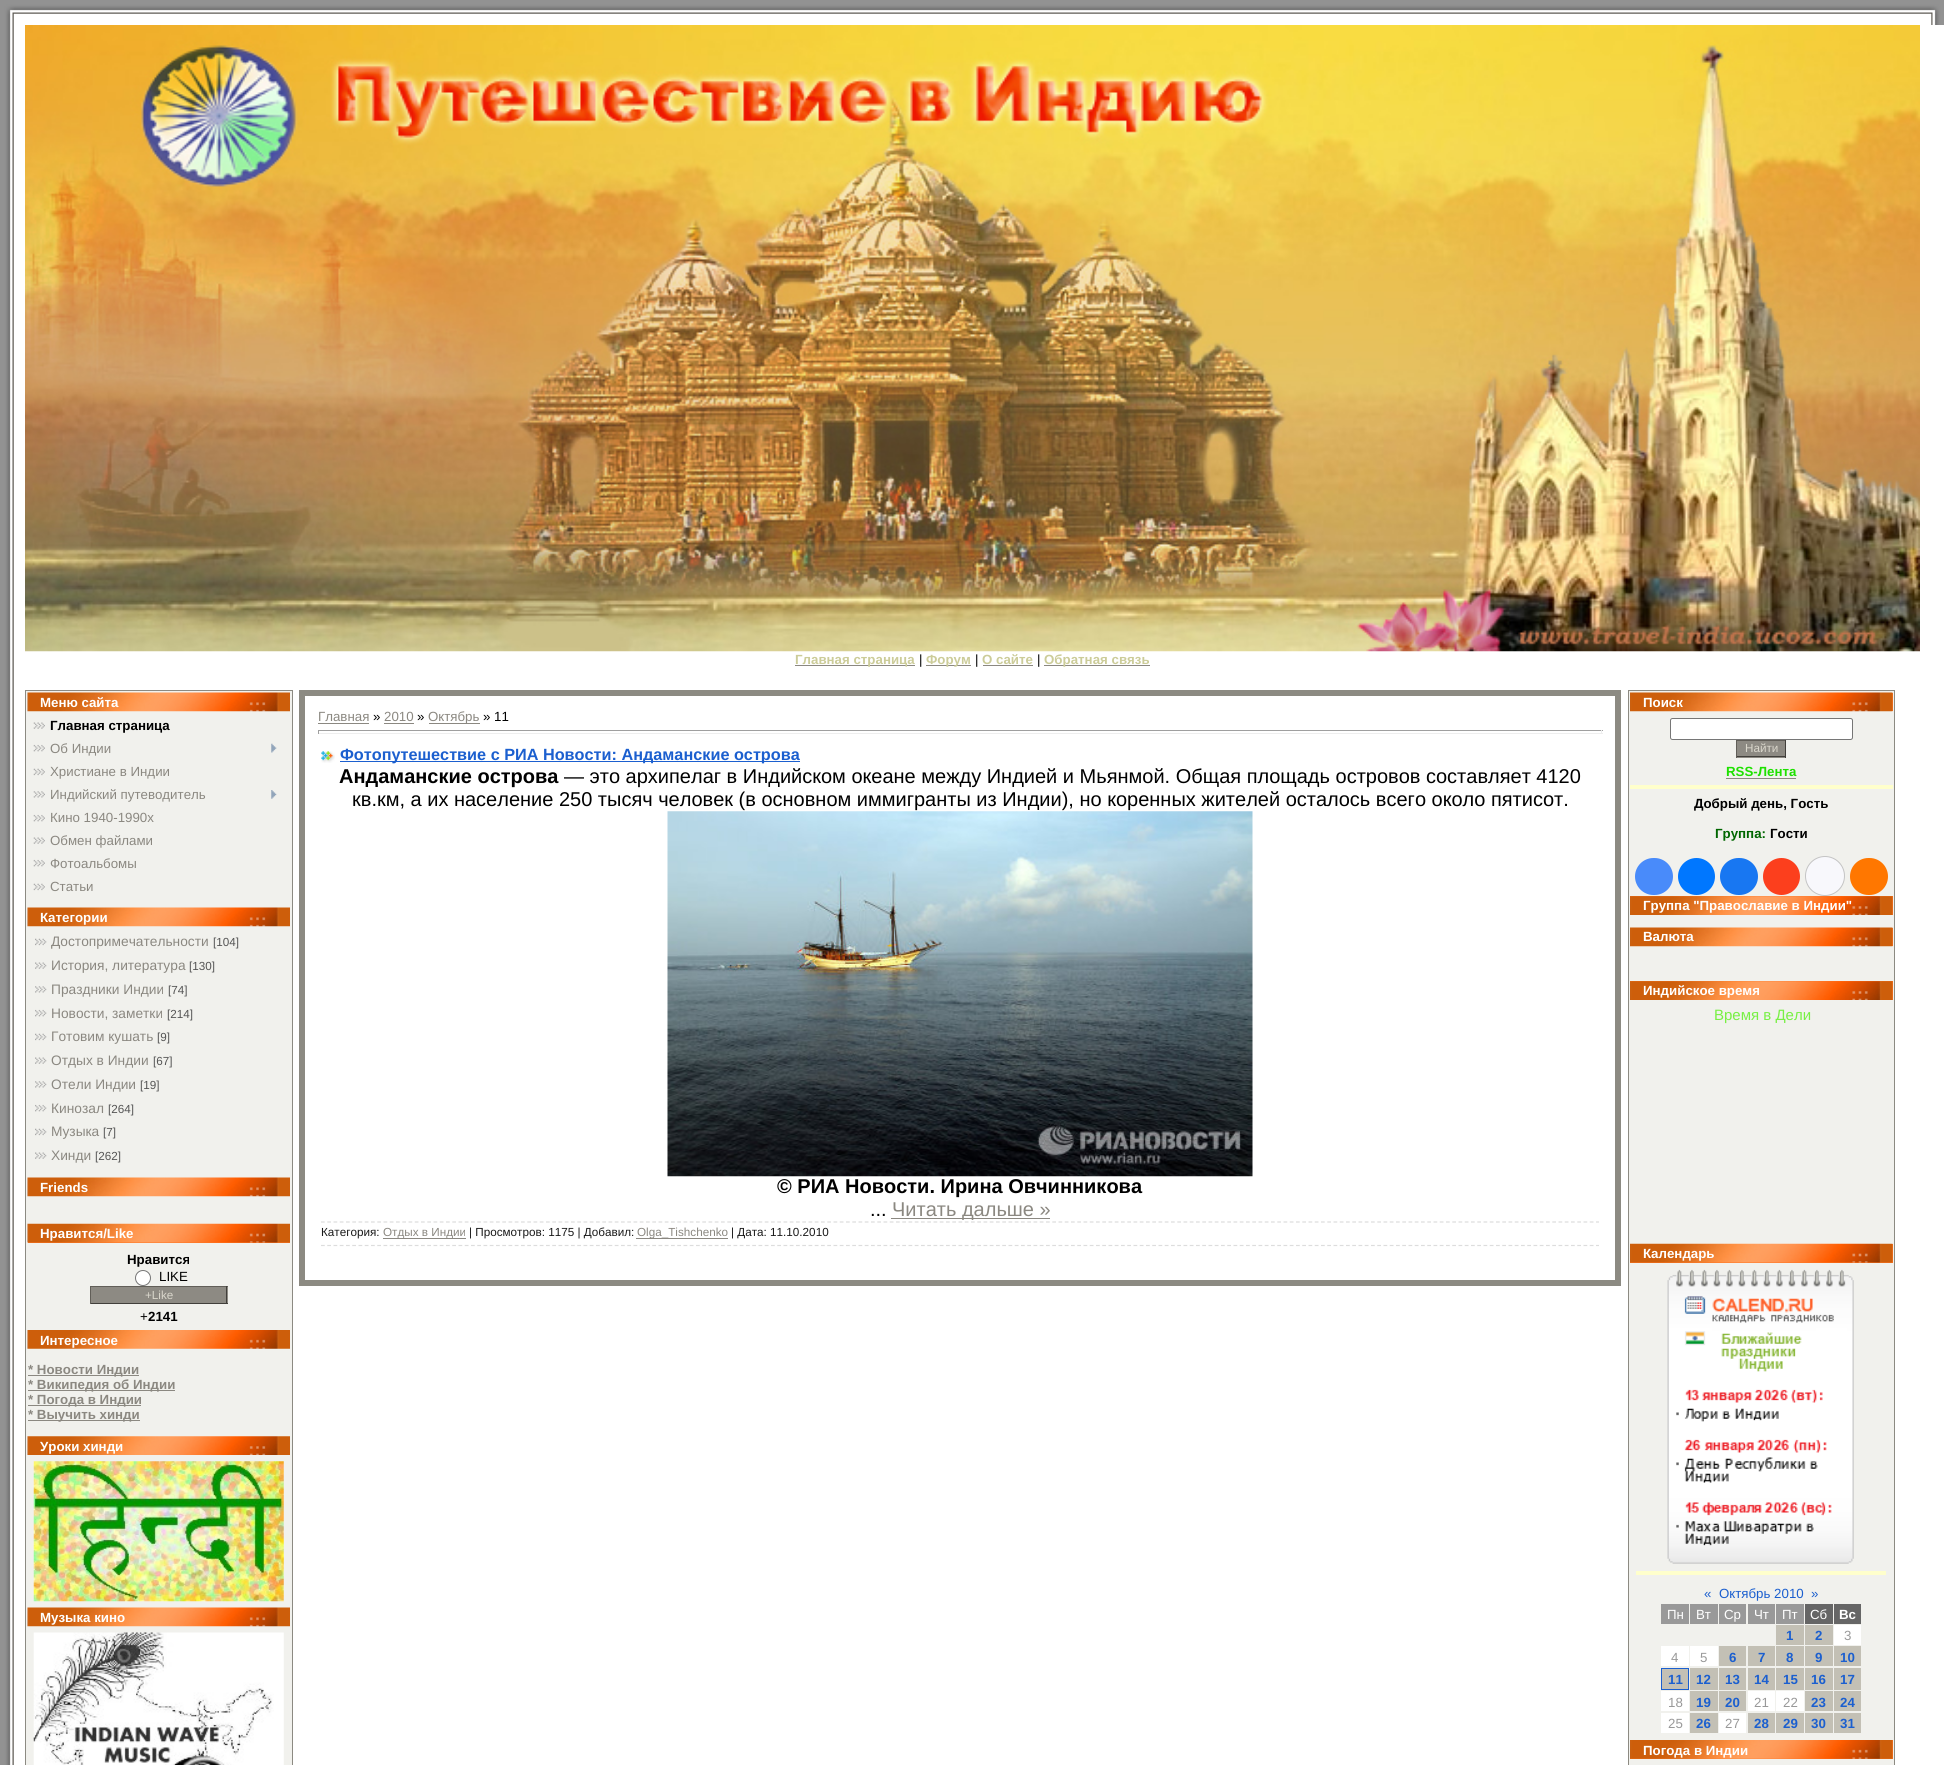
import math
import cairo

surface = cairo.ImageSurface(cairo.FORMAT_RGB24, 1944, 1765)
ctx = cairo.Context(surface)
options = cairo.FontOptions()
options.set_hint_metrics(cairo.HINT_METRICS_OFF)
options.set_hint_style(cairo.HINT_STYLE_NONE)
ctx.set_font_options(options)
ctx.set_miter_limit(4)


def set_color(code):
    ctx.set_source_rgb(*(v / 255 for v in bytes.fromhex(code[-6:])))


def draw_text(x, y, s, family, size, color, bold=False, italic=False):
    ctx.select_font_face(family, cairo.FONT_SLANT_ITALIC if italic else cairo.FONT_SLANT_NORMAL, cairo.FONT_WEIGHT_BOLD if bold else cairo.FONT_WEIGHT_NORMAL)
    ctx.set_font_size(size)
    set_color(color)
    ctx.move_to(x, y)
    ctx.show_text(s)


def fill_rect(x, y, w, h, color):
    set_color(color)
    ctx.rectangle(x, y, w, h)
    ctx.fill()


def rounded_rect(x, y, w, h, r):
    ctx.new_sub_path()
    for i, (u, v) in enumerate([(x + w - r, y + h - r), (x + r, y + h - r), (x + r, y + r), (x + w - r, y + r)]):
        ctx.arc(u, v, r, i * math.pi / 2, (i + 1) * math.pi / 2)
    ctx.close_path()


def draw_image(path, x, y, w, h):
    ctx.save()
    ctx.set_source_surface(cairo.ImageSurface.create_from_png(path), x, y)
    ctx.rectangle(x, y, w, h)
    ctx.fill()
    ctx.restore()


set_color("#ffffff")
ctx.paint()
draw_image("assets/img1.png", 0, 0, 25, 25)
draw_image("assets/img2.png", 25, 0, 1895, 14)
draw_image("assets/img3.png", 1920, 0, 24, 25)
draw_image("assets/img4.png", 0, 25, 14, 1740)
draw_image("assets/img5.png", 25, 25, 1895, 627)
fill_rect(795, 665, 120, 1, "#8b8881")
draw_text(795, 664, "Главная страница", "Liberation Sans", 13.3, "#cccc99", bold=True)
draw_text(919, 664, "|", "Liberation Sans", 13.3, "#000000")
fill_rect(926, 665, 45, 1, "#8b8881")
draw_text(926, 664, "Форум", "Liberation Sans", 13.3, "#cccc99", bold=True)
draw_text(975, 664, "|", "Liberation Sans", 13.3, "#000000")
draw_text(982, 664, "О сайте", "Liberation Sans", 13.3, "#cccc99", bold=True)
fill_rect(983, 665, 50, 1, "#8b8881")
draw_text(1037, 664, "|", "Liberation Sans", 13.3, "#000000")
fill_rect(1044, 665, 106, 1, "#8b8881")
draw_text(1044, 664, "Обратная связь", "Liberation Sans", 13.3, "#cccc99", bold=True)
set_color("#f1f1ed")
ctx.rectangle(25.5, 690.5, 267, 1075)
ctx.fill_preserve()
set_color("#8c8a82")
ctx.set_line_width(1)
ctx.stroke()
draw_image("assets/img6.png", 27, 692, 263, 20)
draw_text(40, 707, "Меню сайта", "Liberation Sans", 13.3, "#ffffff", bold=True)
draw_image("assets/img7.png", 33, 722, 12, 7)
draw_text(50, 730, "Главная страница", "Liberation Sans", 13.3, "#000000", bold=True)
draw_image("assets/img8.png", 33, 744, 12, 8)
draw_text(50, 753, "Об Индии", "Liberation Sans", 13.3, "#8b8881")
draw_image("assets/img9.png", 271, 743, 6, 10)
draw_image("assets/img10.png", 33, 768, 12, 8)
draw_text(50, 776, "Христиане в Индии", "Liberation Sans", 13.3, "#8b8881")
draw_image("assets/img11.png", 33, 791, 12, 7)
draw_text(50, 799, "Индийский путеводитель", "Liberation Sans", 13.3, "#8b8881")
draw_image("assets/img12.png", 271, 790, 6, 9)
draw_image("assets/img8.png", 33, 814, 12, 8)
draw_text(50, 822, "Кино 1940-1990х", "Liberation Sans", 13.3, "#8b8881")
draw_image("assets/img7.png", 33, 837, 12, 7)
draw_text(50, 845, "Обмен файлами", "Liberation Sans", 13.3, "#8b8881")
draw_image("assets/img8.png", 33, 859, 12, 8)
draw_text(50, 868, "Фотоальбомы", "Liberation Sans", 13.3, "#8b8881")
draw_image("assets/img10.png", 33, 883, 12, 8)
draw_text(50, 891, "Статьи", "Liberation Sans", 13.3, "#8b8881")
draw_image("assets/img13.png", 27, 907, 263, 20)
draw_text(40, 922, "Категории", "Liberation Sans", 13.3, "#ffffff", bold=True)
draw_image("assets/img14.png", 35, 938, 12, 8)
draw_text(51, 946, "Достопримечательности", "Liberation Sans", 13.75, "#8b8881")
draw_text(213, 946, "[104]", "Liberation Sans", 11.7, "#555555")
draw_image("assets/img15.png", 35, 962, 12, 7)
draw_text(51, 970, "История, литература", "Liberation Sans", 13.75, "#8b8881")
draw_text(189, 970, "[130]", "Liberation Sans", 11.7, "#555555")
draw_image("assets/img16.png", 35, 986, 12, 7)
draw_text(51, 994, "Праздники Индии", "Liberation Sans", 13.75, "#8b8881")
draw_text(168, 994, "[74]", "Liberation Sans", 11.7, "#555555")
draw_image("assets/img17.png", 35, 1009, 12, 8)
draw_text(51, 1018, "Новости, заметки", "Liberation Sans", 13.75, "#8b8881")
draw_text(167, 1018, "[214]", "Liberation Sans", 11.7, "#555555")
draw_image("assets/img14.png", 35, 1033, 12, 8)
draw_text(51, 1041, "Готовим кушать", "Liberation Sans", 13.75, "#8b8881")
draw_text(157, 1041, "[9]", "Liberation Sans", 11.7, "#555555")
draw_image("assets/img15.png", 35, 1057, 12, 7)
draw_text(51, 1065, "Отдых в Индии", "Liberation Sans", 13.75, "#8b8881")
draw_text(153, 1065, "[67]", "Liberation Sans", 11.7, "#555555")
draw_image("assets/img16.png", 35, 1081, 12, 7)
draw_text(51, 1089, "Отели Индии", "Liberation Sans", 13.75, "#8b8881")
draw_text(140, 1089, "[19]", "Liberation Sans", 11.7, "#555555")
draw_image("assets/img17.png", 35, 1104, 12, 8)
draw_text(51, 1113, "Кинозал", "Liberation Sans", 13.75, "#8b8881")
draw_text(108, 1113, "[264]", "Liberation Sans", 11.7, "#555555")
draw_image("assets/img14.png", 35, 1128, 12, 8)
draw_text(51, 1136, "Музыка", "Liberation Sans", 13.75, "#8b8881")
draw_text(103, 1136, "[7]", "Liberation Sans", 11.7, "#555555")
draw_image("assets/img15.png", 35, 1152, 12, 7)
draw_text(51, 1160, "Хинди", "Liberation Sans", 13.75, "#8b8881")
draw_text(95, 1160, "[262]", "Liberation Sans", 11.7, "#555555")
draw_image("assets/img18.png", 27, 1177, 263, 20)
draw_text(40, 1192, "Friends", "Liberation Sans", 13.3, "#ffffff", bold=True)
fill_rect(28, 1242, 262, 1, "#ff7423")
draw_image("assets/img19.png", 27, 1223, 263, 20)
draw_text(40, 1238, "Нравится/Like", "Liberation Sans", 13.3, "#ffffff", bold=True)
draw_text(127, 1264, "Нравится", "Liberation Sans", 13.3, "#000000", bold=True)
set_color("#ffffff")
ctx.new_path()
ctx.arc(143, 1278, 7.5, 0, 2 * math.pi)
ctx.fill_preserve()
set_color("#767676")
ctx.stroke()
draw_text(159, 1281, "LIKE", "Liberation Sans", 13.3, "#000000")
fill_rect(91, 1287, 137, 16, "#8d8a83")
fill_rect(90, 1286, 138, 1, "#615e58")
fill_rect(226, 1286, 1, 18, "#413f3b")
fill_rect(90, 1303, 138, 1, "#413f3b")
fill_rect(90, 1286, 1, 18, "#615e58")
draw_text(145, 1299, "+Like", "Liberation Sans", 11.7, "#dad7cc")
draw_text(140, 1321, "+", "Liberation Sans", 13.3, "#000000")
draw_text(148, 1321, "2141", "Liberation Sans", 13.3, "#000000", bold=True)
draw_image("assets/img20.png", 27, 1330, 263, 19)
draw_text(40, 1345, "Интересное", "Liberation Sans", 13.3, "#ffffff", bold=True)
fill_rect(28, 1375, 111, 1, "#8b8881")
draw_text(28, 1374, "* Новости Индии", "Liberation Sans", 13.3, "#8b8881", bold=True)
fill_rect(28, 1390, 147, 1, "#8b8881")
draw_text(28, 1389, "* Википедия об Индии", "Liberation Sans", 13.3, "#8b8881", bold=True)
fill_rect(28, 1405, 113, 1, "#8b8881")
draw_text(28, 1404, "* Погода в Индии", "Liberation Sans", 13.3, "#8b8881", bold=True)
fill_rect(28, 1420, 112, 1, "#8b8881")
draw_text(28, 1419, "* Выучить хинди", "Liberation Sans", 13.3, "#8b8881", bold=True)
draw_image("assets/img21.png", 27, 1436, 263, 19)
draw_text(40, 1451, "Уроки хинди", "Liberation Sans", 13.3, "#ffffff", bold=True)
draw_image("assets/img22.png", 33, 1461, 251, 141)
draw_image("assets/img23.png", 27, 1607, 263, 20)
draw_text(40, 1622, "Музыка кино", "Liberation Sans", 13.3, "#ffffff", bold=True)
draw_image("assets/img24.png", 33, 1632, 251, 133)
ctx.rectangle(302, 693, 1316, 590)
set_color("#8c8a82")
ctx.set_line_width(6)
ctx.stroke()
draw_text(318, 721, "Главная", "Liberation Sans", 13.3, "#8b8881")
fill_rect(318, 723, 51, 1, "#8b8881")
draw_text(373, 721, "»", "Liberation Sans", 13.3, "#000000")
draw_text(384, 721, "2010", "Liberation Sans", 13.3, "#8b8881")
fill_rect(384, 723, 30, 1, "#8b8881")
draw_text(417, 721, "»", "Liberation Sans", 13.3, "#000000")
fill_rect(429, 723, 51, 1, "#8b8881")
draw_text(428, 721, "Октябрь", "Liberation Sans", 13.3, "#8b8881")
draw_text(483, 721, "» 11", "Liberation Sans", 13.3, "#000000")
fill_rect(318, 730, 1285, 1, "#9f9f9f")
fill_rect(1601, 730, 1, 4, "#eeeeee")
fill_rect(318, 733, 1285, 1, "#eeeeee")
fill_rect(318, 730, 1, 4, "#9f9f9f")
draw_image("assets/img25.png", 321, 751, 14, 12)
fill_rect(340, 761, 460, 1, "#1b5fcf")
draw_text(340, 760, "Фотопутешествие с РИА Новости: Андаманские острова", "Liberation Sans", 16.25, "#1b5fcf", bold=True)
draw_text(339, 783, "Андаманские острова", "Liberation Sans", 20, "#000000", bold=True)
draw_text(564, 783, "— это архипелаг в Индийском океане между Индией и Мьянмой. Общая площадь островов составляет 4120", "Liberation Sans", 20, "#000000")
draw_text(352, 806, "кв.км, а их население 250 тысяч человек (в основном иммигранты из Индии), но коренных жителей осталось всего около пятисот.", "Liberation Sans", 20, "#000000")
draw_image("assets/img26.png", 667, 811, 586, 366)
draw_text(777, 1193, "© РИА Новости. Ирина Овчинникова", "Liberation Sans", 20, "#000000", bold=True)
draw_text(870, 1216, "...", "Liberation Sans", 20, "#000000")
fill_rect(891, 1218, 159, 1, "#8b8881")
draw_text(892, 1216, "Читать дальше »", "Liberation Sans", 20, "#8b8881")
ctx.new_path()
ctx.move_to(321, 1222)
ctx.line_to(1599, 1222)
set_color("#dddddd")
ctx.set_line_width(1.2)
ctx.set_dash([3.75, 2.5])
ctx.stroke()
ctx.new_path()
ctx.move_to(321, 1245.5)
ctx.line_to(1599, 1245.5)
ctx.stroke()
draw_text(321, 1236, "Категория:", "Liberation Sans", 11.7, "#1a1a1a")
fill_rect(383, 1238, 83, 1, "#8b8881")
draw_text(383, 1236, "Отдых в Индии", "Liberation Sans", 11.7, "#8b8881")
draw_text(469, 1236, "| Просмотров: 1175 | Добавил:", "Liberation Sans", 11.7, "#1a1a1a")
fill_rect(636, 1238, 92, 1, "#8b8881")
draw_text(637, 1236, "Olga_Tishchenko", "Liberation Sans", 11.7, "#8b8881")
draw_text(731, 1236, "| Дата: 11.10.2010", "Liberation Sans", 11.7, "#1a1a1a")
set_color("#f1f1ed")
ctx.rectangle(1628.5, 690.5, 266, 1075)
ctx.fill_preserve()
set_color("#8c8a82")
ctx.set_line_width(1)
ctx.set_dash([])
ctx.stroke()
fill_rect(1892, 693, 1, 18, "#ff7423")
draw_image("assets/img27.png", 1630, 692, 263, 20)
draw_text(1643, 707, "Поиск", "Liberation Sans", 13.3, "#ffffff", bold=True)
rounded_rect(1670.5, 718.5, 182, 21, 2)
ctx.fill_preserve()
set_color("#767676")
ctx.stroke()
fill_rect(1737, 741, 48, 17, "#8d8a83")
fill_rect(1736, 740, 50, 1, "#615e58")
fill_rect(1785, 740, 1, 18, "#413f3b")
fill_rect(1736, 756, 50, 1, "#413f3b")
fill_rect(1736, 740, 1, 18, "#615e58")
draw_text(1745, 752, "Найти", "Liberation Sans", 11.7, "#dad7cc")
draw_text(1726, 776, "RSS-Лента", "Liberation Sans", 13.3, "#1ee100", bold=True)
fill_rect(1726, 778, 70, 1, "#8b8881")
fill_rect(1630, 785, 263, 4, "#ffffcc")
draw_text(1694, 808, "Добрый день, Гость", "Liberation Sans", 13.3, "#000000", bold=True)
draw_text(1715, 838, "Группа:", "Liberation Sans", 13.3, "#006600", bold=True)
draw_text(1770, 838, "Гости", "Liberation Sans", 13.3, "#000000", bold=True)
set_color("#498bfa")
rounded_rect(1635, 858, 38, 37, 18.5)
ctx.fill()
set_color("#0077ff")
ctx.arc(1696.5, 876.5, 18.5, 0, 2 * math.pi)
ctx.fill()
set_color("#1877f2")
rounded_rect(1720, 858, 38, 37, 18.5)
ctx.fill()
set_color("#fc3f1d")
ctx.arc(1781.5, 876.5, 18.5, 0, 2 * math.pi)
ctx.fill()
set_color("#f8f8fc")
ctx.arc(1825, 876, 19.5, 0, 2 * math.pi)
ctx.fill_preserve()
set_color("#c4c4c4")
ctx.stroke()
set_color("#ff7700")
rounded_rect(1850, 858, 38, 37, 18.5)
ctx.fill()
fill_rect(1630, 896, 263, 19, "#ff7423")
draw_image("assets/img28.png", 1630, 896, 263, 19)
draw_text(1643, 910, "Группа \"Православие в Индии\"", "Liberation Sans", 13.3, "#ffffff", bold=True)
fill_rect(1892, 928, 1, 18, "#ff7423")
draw_image("assets/img29.png", 1630, 927, 263, 20)
draw_text(1643, 941, "Валюта", "Liberation Sans", 13.3, "#ffffff", bold=True)
fill_rect(1630, 981, 263, 19, "#ff7423")
draw_image("assets/img30.png", 1630, 981, 263, 19)
draw_text(1643, 995, "Индийское время", "Liberation Sans", 13.3, "#ffffff", bold=True)
draw_text(1714, 1020, "Время в Дели", "Liberation Sans", 15, "#77f043")
fill_rect(1630, 1244, 263, 19, "#ff7423")
draw_image("assets/img31.png", 1630, 1243, 263, 20)
draw_text(1643, 1258, "Календарь", "Liberation Sans", 13.3, "#ffffff", bold=True)
draw_image("assets/img32.png", 1667, 1269, 187, 295)
fill_rect(1636, 1571, 250, 4, "#ffffcc")
draw_text(1704, 1598, "«", "Liberation Sans", 13.3, "#1b5fcf")
draw_text(1719, 1598, "Октябрь 2010", "Liberation Sans", 13.3, "#1b5fcf")
draw_text(1811, 1598, "»", "Liberation Sans", 13.3, "#1b5fcf")
fill_rect(1661, 1604, 28, 20, "#999999")
draw_text(1667, 1619, "Пн", "Liberation Sans", 13.3, "#ffffff")
fill_rect(1690, 1604, 28, 20, "#999999")
draw_text(1696, 1619, "Вт", "Liberation Sans", 13.3, "#ffffff")
fill_rect(1719, 1604, 27, 20, "#999999")
draw_text(1724, 1619, "Ср", "Liberation Sans", 13.3, "#ffffff")
fill_rect(1748, 1604, 27, 20, "#999999")
draw_text(1754, 1619, "Чт", "Liberation Sans", 13.3, "#ffffff")
fill_rect(1776, 1604, 28, 20, "#999999")
draw_text(1782, 1619, "Пт", "Liberation Sans", 13.3, "#ffffff")
fill_rect(1805, 1604, 28, 20, "#666666")
draw_text(1810, 1619, "Сб", "Liberation Sans", 13.3, "#ffffff")
fill_rect(1834, 1604, 27, 20, "#666666")
draw_text(1839, 1619, "Вс", "Liberation Sans", 13.3, "#ffffff", bold=True)
fill_rect(1776, 1625, 28, 20, "#c3c0b5")
draw_text(1786, 1640, "1", "Liberation Sans", 13.3, "#1b5fcf", bold=True)
fill_rect(1805, 1625, 28, 20, "#c3c0b5")
draw_text(1815, 1640, "2", "Liberation Sans", 13.3, "#1b5fcf", bold=True)
fill_rect(1834, 1625, 27, 20, "#ffffff")
draw_text(1844, 1640, "3", "Liberation Sans", 13.3, "#999999")
fill_rect(1661, 1646, 28, 20, "#ffffff")
draw_text(1671, 1662, "4", "Liberation Sans", 13.3, "#999999")
fill_rect(1690, 1646, 28, 20, "#ffffff")
draw_text(1700, 1662, "5", "Liberation Sans", 13.3, "#999999")
fill_rect(1719, 1646, 27, 20, "#c3c0b5")
draw_text(1729, 1662, "6", "Liberation Sans", 13.3, "#1b5fcf", bold=True)
fill_rect(1748, 1646, 27, 20, "#c3c0b5")
draw_text(1758, 1662, "7", "Liberation Sans", 13.3, "#1b5fcf", bold=True)
fill_rect(1776, 1646, 28, 20, "#c3c0b5")
draw_text(1786, 1662, "8", "Liberation Sans", 13.3, "#1b5fcf", bold=True)
fill_rect(1805, 1646, 28, 20, "#c3c0b5")
draw_text(1815, 1662, "9", "Liberation Sans", 13.3, "#1b5fcf", bold=True)
fill_rect(1834, 1646, 27, 20, "#c3c0b5")
draw_text(1840, 1662, "10", "Liberation Sans", 13.3, "#1b5fcf", bold=True)
set_color("#c3c0b5")
ctx.rectangle(1661.5, 1668.5, 27, 21)
ctx.fill_preserve()
set_color("#1b5fcf")
ctx.stroke()
draw_text(1668, 1684, "11", "Liberation Sans", 13.3, "#1b5fcf", bold=True)
fill_rect(1690, 1668, 28, 22, "#c3c0b5")
draw_text(1696, 1684, "12", "Liberation Sans", 13.3, "#1b5fcf", bold=True)
fill_rect(1719, 1668, 27, 22, "#c3c0b5")
draw_text(1725, 1684, "13", "Liberation Sans", 13.3, "#1b5fcf", bold=True)
fill_rect(1748, 1668, 27, 22, "#c3c0b5")
draw_text(1754, 1684, "14", "Liberation Sans", 13.3, "#1b5fcf", bold=True)
fill_rect(1776, 1668, 28, 22, "#c3c0b5")
draw_text(1783, 1684, "15", "Liberation Sans", 13.3, "#1b5fcf", bold=True)
fill_rect(1805, 1668, 28, 22, "#c3c0b5")
draw_text(1811, 1684, "16", "Liberation Sans", 13.3, "#1b5fcf", bold=True)
fill_rect(1834, 1668, 27, 22, "#c3c0b5")
draw_text(1840, 1684, "17", "Liberation Sans", 13.3, "#1b5fcf", bold=True)
fill_rect(1661, 1691, 28, 20, "#ffffff")
draw_text(1668, 1707, "18", "Liberation Sans", 13.3, "#999999")
fill_rect(1690, 1691, 28, 20, "#c3c0b5")
draw_text(1696, 1707, "19", "Liberation Sans", 13.3, "#1b5fcf", bold=True)
fill_rect(1719, 1691, 27, 20, "#c3c0b5")
draw_text(1725, 1707, "20", "Liberation Sans", 13.3, "#1b5fcf", bold=True)
fill_rect(1748, 1691, 27, 20, "#ffffff")
draw_text(1754, 1707, "21", "Liberation Sans", 13.3, "#999999")
fill_rect(1776, 1691, 28, 20, "#ffffff")
draw_text(1783, 1707, "22", "Liberation Sans", 13.3, "#999999")
fill_rect(1805, 1691, 28, 20, "#c3c0b5")
draw_text(1811, 1707, "23", "Liberation Sans", 13.3, "#1b5fcf", bold=True)
fill_rect(1834, 1691, 27, 20, "#c3c0b5")
draw_text(1840, 1707, "24", "Liberation Sans", 13.3, "#1b5fcf", bold=True)
fill_rect(1661, 1713, 28, 20, "#ffffff")
draw_text(1668, 1728, "25", "Liberation Sans", 13.3, "#999999")
fill_rect(1690, 1713, 28, 20, "#c3c0b5")
draw_text(1696, 1728, "26", "Liberation Sans", 13.3, "#1b5fcf", bold=True)
fill_rect(1719, 1713, 27, 20, "#ffffff")
draw_text(1725, 1728, "27", "Liberation Sans", 13.3, "#999999")
fill_rect(1748, 1713, 27, 20, "#c3c0b5")
draw_text(1754, 1728, "28", "Liberation Sans", 13.3, "#1b5fcf", bold=True)
fill_rect(1776, 1713, 28, 20, "#c3c0b5")
draw_text(1783, 1728, "29", "Liberation Sans", 13.3, "#1b5fcf", bold=True)
fill_rect(1805, 1713, 28, 20, "#c3c0b5")
draw_text(1811, 1728, "30", "Liberation Sans", 13.3, "#1b5fcf", bold=True)
fill_rect(1834, 1713, 27, 20, "#c3c0b5")
draw_text(1840, 1728, "31", "Liberation Sans", 13.3, "#1b5fcf", bold=True)
fill_rect(1630, 1740, 263, 19, "#ff7423")
draw_image("assets/img33.png", 1630, 1740, 263, 19)
draw_text(1643, 1755, "Погода в Индии", "Liberation Sans", 13.3, "#ffffff", bold=True)
surface.write_to_png("output.png")
